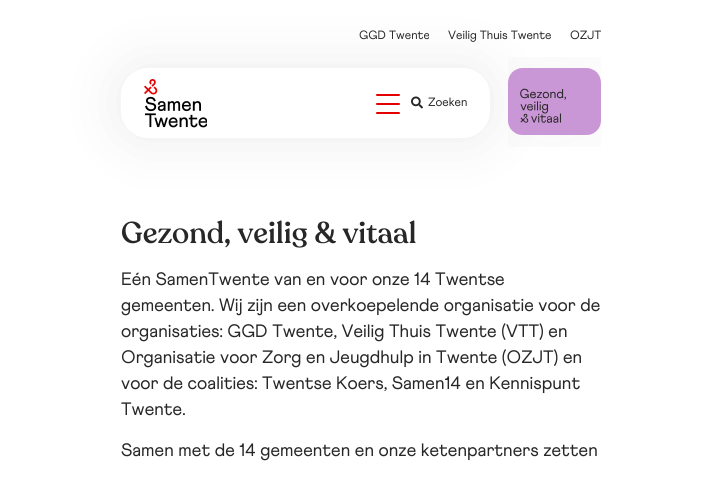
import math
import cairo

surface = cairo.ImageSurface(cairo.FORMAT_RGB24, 722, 477)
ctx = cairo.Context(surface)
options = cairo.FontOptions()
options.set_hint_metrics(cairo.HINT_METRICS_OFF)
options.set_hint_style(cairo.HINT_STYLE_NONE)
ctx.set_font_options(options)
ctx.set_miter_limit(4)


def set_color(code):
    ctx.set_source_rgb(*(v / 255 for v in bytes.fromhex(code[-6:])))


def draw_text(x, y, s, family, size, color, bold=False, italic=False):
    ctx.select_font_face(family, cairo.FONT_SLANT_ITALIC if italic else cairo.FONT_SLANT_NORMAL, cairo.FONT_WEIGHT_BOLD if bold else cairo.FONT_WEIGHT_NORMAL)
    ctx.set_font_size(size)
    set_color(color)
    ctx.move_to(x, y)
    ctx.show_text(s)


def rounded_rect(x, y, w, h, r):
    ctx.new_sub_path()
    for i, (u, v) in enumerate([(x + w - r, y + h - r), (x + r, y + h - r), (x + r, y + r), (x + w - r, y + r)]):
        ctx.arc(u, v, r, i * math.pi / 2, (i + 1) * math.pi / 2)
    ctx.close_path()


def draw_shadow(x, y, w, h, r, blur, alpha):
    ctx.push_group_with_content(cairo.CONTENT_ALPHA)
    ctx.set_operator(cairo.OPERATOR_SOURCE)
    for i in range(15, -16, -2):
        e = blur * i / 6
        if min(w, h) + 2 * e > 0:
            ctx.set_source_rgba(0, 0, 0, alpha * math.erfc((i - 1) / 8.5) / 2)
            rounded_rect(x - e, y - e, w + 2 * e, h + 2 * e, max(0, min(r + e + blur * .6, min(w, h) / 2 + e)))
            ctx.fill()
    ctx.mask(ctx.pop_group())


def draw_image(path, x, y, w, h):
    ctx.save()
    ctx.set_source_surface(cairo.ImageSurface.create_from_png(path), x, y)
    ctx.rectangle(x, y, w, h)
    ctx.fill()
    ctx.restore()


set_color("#ffffff")
ctx.paint()
draw_text(359, 39, "GGD Twente", "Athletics", 12, "#282727")
draw_text(448, 39, "Veilig Thuis Twente", "Athletics", 12, "#282727")
draw_text(570, 39, "OZJT", "Athletics", 12, "#282727")
set_color("#989898")
draw_shadow(121, 68, 369, 70, 27, 28, 0.2)
set_color("#ffffff")
rounded_rect(121, 68, 369, 70, 27)
ctx.fill()
draw_image("assets/img1.png", 144, 79, 63, 49)
set_color("#e50000")
rounded_rect(376, 112, 24, 2, 1)
ctx.fill()
rounded_rect(376, 103, 24, 2, 1)
ctx.fill()
rounded_rect(376, 94, 24, 2, 1)
ctx.fill()
draw_image("assets/img2.png", 411, 96, 12, 13)
draw_text(428, 106, "Zoeken", "Athletics", 12, "#282727")
draw_image("assets/img3.png", 508, 57, 93, 90)
draw_text(121, 243, "Gezond, veilig & vitaal", "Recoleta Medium", 30, "#282727")
draw_text(121, 285, "Eén SamenTwente van en voor onze 14 Twentse", "Athletics", 18, "#282727")
draw_text(121, 311, "gemeenten. Wij zijn een overkoepelende organisatie voor de", "Athletics", 18, "#282727")
draw_text(121, 337, "organisaties: GGD Twente, Veilig Thuis Twente (VTT) en", "Athletics", 18, "#282727")
draw_text(121, 363, "Organisatie voor Zorg en Jeugdhulp in Twente (OZJT) en", "Athletics", 18, "#282727")
draw_text(121, 389, "voor de coalities: Twentse Koers, Samen14 en Kennispunt", "Athletics", 18, "#282727")
draw_text(121, 415, "Twente.", "Athletics", 18, "#282727")
draw_text(121, 456, "Samen met de 14 gemeenten en onze ketenpartners zetten", "Athletics", 18, "#282727")
surface.write_to_png("output.png")
